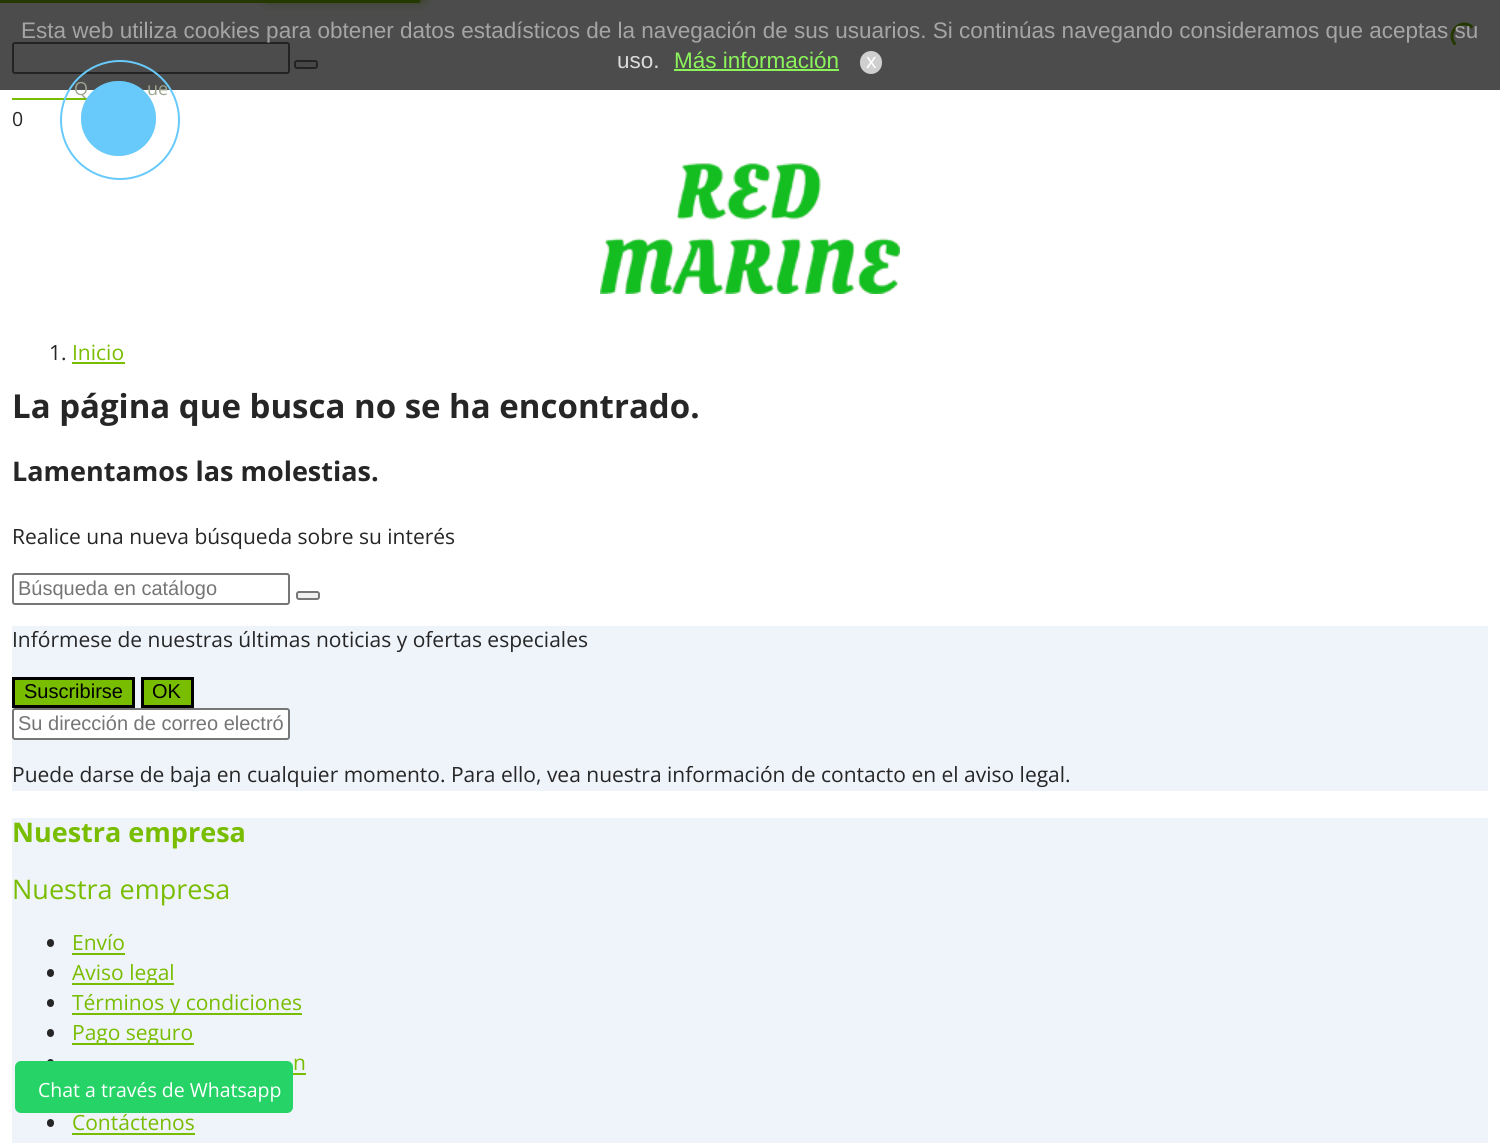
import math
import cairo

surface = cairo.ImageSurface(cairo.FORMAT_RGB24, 1500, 1143)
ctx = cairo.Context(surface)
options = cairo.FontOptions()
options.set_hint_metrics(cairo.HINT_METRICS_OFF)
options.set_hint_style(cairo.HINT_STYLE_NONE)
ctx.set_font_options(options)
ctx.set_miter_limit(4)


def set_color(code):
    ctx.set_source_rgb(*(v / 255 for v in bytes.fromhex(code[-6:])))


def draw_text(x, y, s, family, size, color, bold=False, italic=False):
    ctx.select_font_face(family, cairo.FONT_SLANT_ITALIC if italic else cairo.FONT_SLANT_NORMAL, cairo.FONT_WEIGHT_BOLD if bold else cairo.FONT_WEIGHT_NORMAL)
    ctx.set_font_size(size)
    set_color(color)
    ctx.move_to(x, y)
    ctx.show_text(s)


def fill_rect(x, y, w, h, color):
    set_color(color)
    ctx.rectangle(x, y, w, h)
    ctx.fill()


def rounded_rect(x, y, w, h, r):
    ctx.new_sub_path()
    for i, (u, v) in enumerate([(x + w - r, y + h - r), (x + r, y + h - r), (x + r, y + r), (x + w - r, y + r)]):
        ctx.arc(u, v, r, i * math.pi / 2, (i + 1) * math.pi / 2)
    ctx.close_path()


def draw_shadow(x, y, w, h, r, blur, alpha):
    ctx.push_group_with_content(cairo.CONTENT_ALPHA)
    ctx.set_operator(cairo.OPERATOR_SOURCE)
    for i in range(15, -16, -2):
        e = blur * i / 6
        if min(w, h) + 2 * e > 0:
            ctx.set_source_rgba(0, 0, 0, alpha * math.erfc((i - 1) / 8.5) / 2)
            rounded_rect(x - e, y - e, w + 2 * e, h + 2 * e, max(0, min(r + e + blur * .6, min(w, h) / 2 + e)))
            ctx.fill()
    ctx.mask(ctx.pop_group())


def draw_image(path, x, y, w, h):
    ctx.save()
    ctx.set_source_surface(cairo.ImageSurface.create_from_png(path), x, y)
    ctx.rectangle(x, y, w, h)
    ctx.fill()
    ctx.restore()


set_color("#ffffff")
ctx.paint()
fill_rect(0, 0, 420, 3, "#78bd00")
set_color("#78bd00")
draw_shadow(270, -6, 150, 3, 0, 4, 1)
draw_shadow(270, -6, 150, 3, 0, 7.5, 1)
ctx.new_path()
ctx.move_to(1455.5, 44.5)
ctx.curve_to(1444.5, 33.5, 1461.5, 16.5, 1472.5, 27.5)
set_color("#78bd00")
ctx.set_line_width(3)
ctx.stroke()
fill_rect(12, 818, 1476, 325, "#eff3fa")
rounded_rect(13, 43, 276, 30, 2)
set_color("#767676")
ctx.set_line_width(2)
ctx.stroke()
set_color("#efefef")
rounded_rect(295, 61, 22, 7, 2)
ctx.fill_preserve()
set_color("#767676")
ctx.stroke()
ctx.set_source_rgba(0, 0, 0, 0.7)
ctx.rectangle(0, 0, 1500, 90)
ctx.fill()
draw_text(21, 38, "Esta web utiliza cookies para obtener datos estadísticos de la navegación de sus usuarios. Si continúas navegando consideramos que aceptas su", "Liberation Sans", 22.5, "#a5a5a5")
draw_text(617, 68, "uso.", "Liberation Sans", 22.5, "#dbdbdb")
draw_text(674, 68, "Más información", "Liberation Sans", 22.5, "#8cf45b")
fill_rect(674, 69, 165, 2, "#8cf45b")
set_color("#cfcfcf")
rounded_rect(860, 51, 22, 23, 11)
ctx.fill()
draw_text(866, 68, "x", "Liberation Sans", 21, "#ffffff")
fill_rect(12, 98, 76, 2, "#78bd00")
draw_text(74, 95, "Q", "Open Sans", 18, "#9da58f")
draw_text(147, 95, "ue", "Open Sans", 18, "#9da58f")
ctx.new_path()
ctx.arc(118.5, 118.5, 36.5, 0, 2 * math.pi)
ctx.set_source_rgba(0.408, 0.792, 0.98, 0.5)
ctx.stroke()
ctx.arc(120, 120, 59, 0, 2 * math.pi)
set_color("#68cafa")
ctx.stroke()
ctx.arc(118.5, 118.5, 37.5, 0, 2 * math.pi)
ctx.fill()
draw_text(12, 842, "Nuestra empresa", "Open Sans", 27, "#78bd00", bold=True)
draw_text(12, 899, "Nuestra empresa", "Open Sans", 27, "#78bd00")
set_color("#262626")
rounded_rect(47, 939, 7, 8, 3.5)
ctx.fill()
draw_text(72, 950, "Envío", "Open Sans", 21, "#78bd00")
fill_rect(72, 953, 53, 2, "#78bd00")
set_color("#262626")
rounded_rect(47, 969, 7, 8, 3.5)
ctx.fill()
fill_rect(72, 983, 102, 2, "#78bd00")
draw_text(72, 980, "Aviso legal", "Open Sans", 21, "#78bd00")
set_color("#262626")
rounded_rect(47, 999, 7, 8, 3.5)
ctx.fill()
fill_rect(72, 1013, 230, 2, "#78bd00")
draw_text(72, 1010, "Términos y condiciones", "Open Sans", 21, "#78bd00")
set_color("#262626")
rounded_rect(47, 1029, 7, 8, 3.5)
ctx.fill()
fill_rect(72, 1043, 122, 2, "#78bd00")
draw_text(72, 1040, "Pago seguro", "Open Sans", 21, "#78bd00")
set_color("#262626")
rounded_rect(47, 1059, 7, 8, 3.5)
ctx.fill()
draw_text(293, 1070, "n", "Open Sans", 21, "#78bd00")
fill_rect(293, 1073, 13, 2, "#78bd00")
set_color("#262626")
rounded_rect(47, 1119, 7, 8, 3.5)
ctx.fill()
draw_text(72, 1130, "Contáctenos", "Open Sans", 21, "#78bd00")
fill_rect(72, 1133, 123, 2, "#78bd00")
fill_rect(12, 626, 1476, 165, "#eff3fa")
draw_text(12, 647, "Infórmese de nuestras últimas noticias y ofertas especiales", "Open Sans", 21, "#262626")
set_color("#78bd00")
ctx.rectangle(13.5, 678.5, 120, 28)
ctx.fill_preserve()
set_color("#000000")
ctx.set_line_width(3)
ctx.stroke()
draw_text(24, 698, "Suscribirse", "Liberation Sans", 20, "#000000")
set_color("#78bd00")
ctx.rectangle(142.5, 678.5, 50, 28)
ctx.fill_preserve()
set_color("#000000")
ctx.stroke()
draw_text(152, 698, "OK", "Liberation Sans", 20, "#000000")
set_color("#ffffff")
rounded_rect(13, 709, 276, 30, 2)
ctx.fill_preserve()
set_color("#767676")
ctx.set_line_width(2)
ctx.stroke()
draw_text(18, 730, "Su dirección de correo electró", "Liberation Sans", 20, "#757575")
draw_text(12, 782, "Puede darse de baja en cualquier momento. Para ello, vea nuestra información de contacto en el aviso legal.", "Open Sans", 21, "#262626")
draw_text(12, 126, "0", "Open Sans", 19.5, "#262626")
draw_image("assets/img1.png", 600, 163, 300, 131)
draw_text(49, 360, "1.", "Open Sans", 21, "#262626")
draw_text(72, 360, "Inicio", "Open Sans", 21, "#78bd00")
fill_rect(72, 362, 53, 2, "#78bd00")
draw_text(12, 418, "La página que busca no se ha encontrado.", "Open Sans", 33, "#262626", bold=True)
draw_text(12, 481, "Lamentamos las molestias.", "Open Sans", 27, "#262626", bold=True)
draw_text(12, 544, "Realice una nueva búsqueda sobre su interés", "Open Sans", 21, "#262626")
rounded_rect(13, 574, 276, 30, 2)
set_color("#767676")
ctx.stroke()
draw_text(18, 595, "Búsqueda en catálogo", "Liberation Sans", 20, "#757575")
set_color("#efefef")
rounded_rect(297, 592, 22, 7, 2)
ctx.fill_preserve()
set_color("#767676")
ctx.stroke()
set_color("#25d366")
rounded_rect(15, 1061, 278, 52, 6)
ctx.fill()
draw_text(38, 1097, "Chat a través de Whatsapp", "Open Sans", 19.5, "#ffffff")
surface.write_to_png("output.png")
